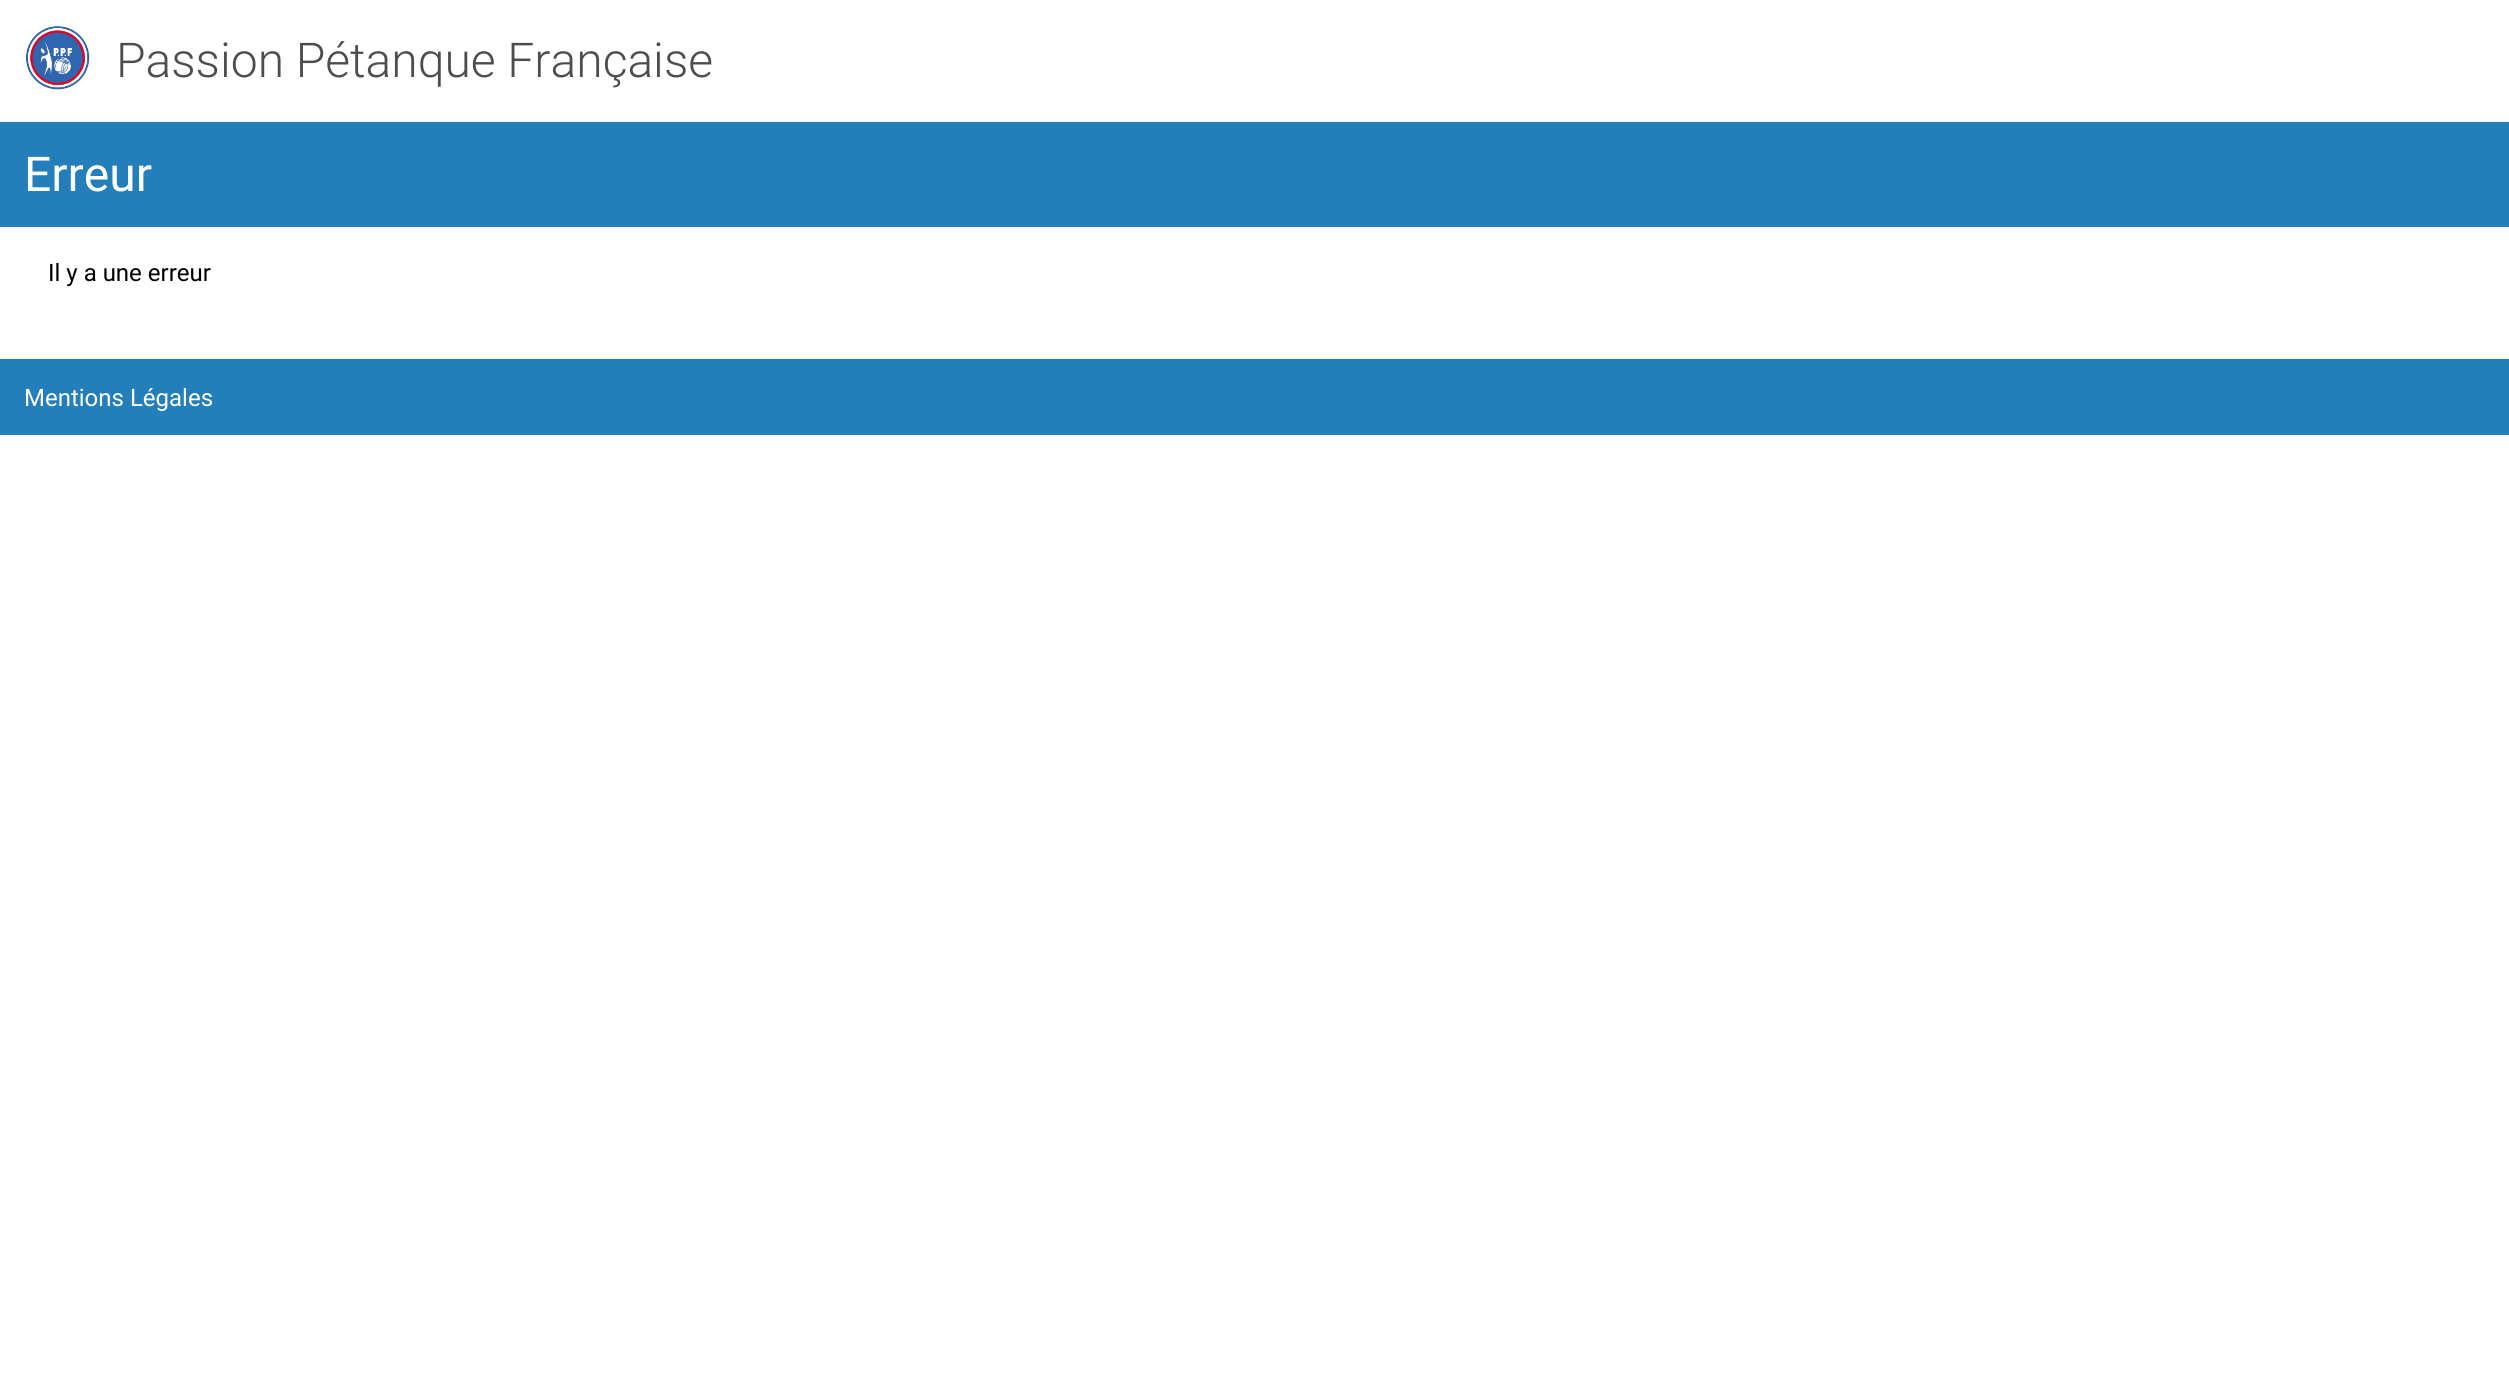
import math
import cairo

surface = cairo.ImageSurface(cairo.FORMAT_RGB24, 2509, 1374)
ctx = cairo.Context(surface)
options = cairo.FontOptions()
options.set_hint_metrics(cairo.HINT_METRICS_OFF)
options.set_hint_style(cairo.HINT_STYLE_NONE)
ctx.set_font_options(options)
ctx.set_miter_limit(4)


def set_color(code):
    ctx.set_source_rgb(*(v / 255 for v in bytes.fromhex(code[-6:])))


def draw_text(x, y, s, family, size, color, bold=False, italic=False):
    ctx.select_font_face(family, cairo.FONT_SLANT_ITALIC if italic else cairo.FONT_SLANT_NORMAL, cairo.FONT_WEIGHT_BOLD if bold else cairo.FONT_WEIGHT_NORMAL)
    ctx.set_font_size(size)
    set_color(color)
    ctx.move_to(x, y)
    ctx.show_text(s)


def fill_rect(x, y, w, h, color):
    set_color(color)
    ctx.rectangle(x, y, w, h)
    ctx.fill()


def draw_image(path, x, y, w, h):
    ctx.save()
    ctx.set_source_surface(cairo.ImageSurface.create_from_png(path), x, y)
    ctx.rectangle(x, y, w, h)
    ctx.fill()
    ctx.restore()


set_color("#ffffff")
ctx.paint()
draw_image("assets/img1.png", 26, 26, 64, 64)
draw_text(116, 77, "Passion Pétanque Française", "Roboto Light", 48, "#4d4d4d")
fill_rect(0, 122, 2509, 105, "#237eb9")
draw_text(24, 191, "Erreur", "Roboto", 48, "#ffffff")
draw_text(48, 281, "Il y a une erreur", "Roboto", 24, "#000000")
fill_rect(0, 359, 2509, 76, "#237eb9")
draw_text(24, 406, "Mentions Légales", "Roboto", 24, "#ffffff")
surface.write_to_png("output.png")
